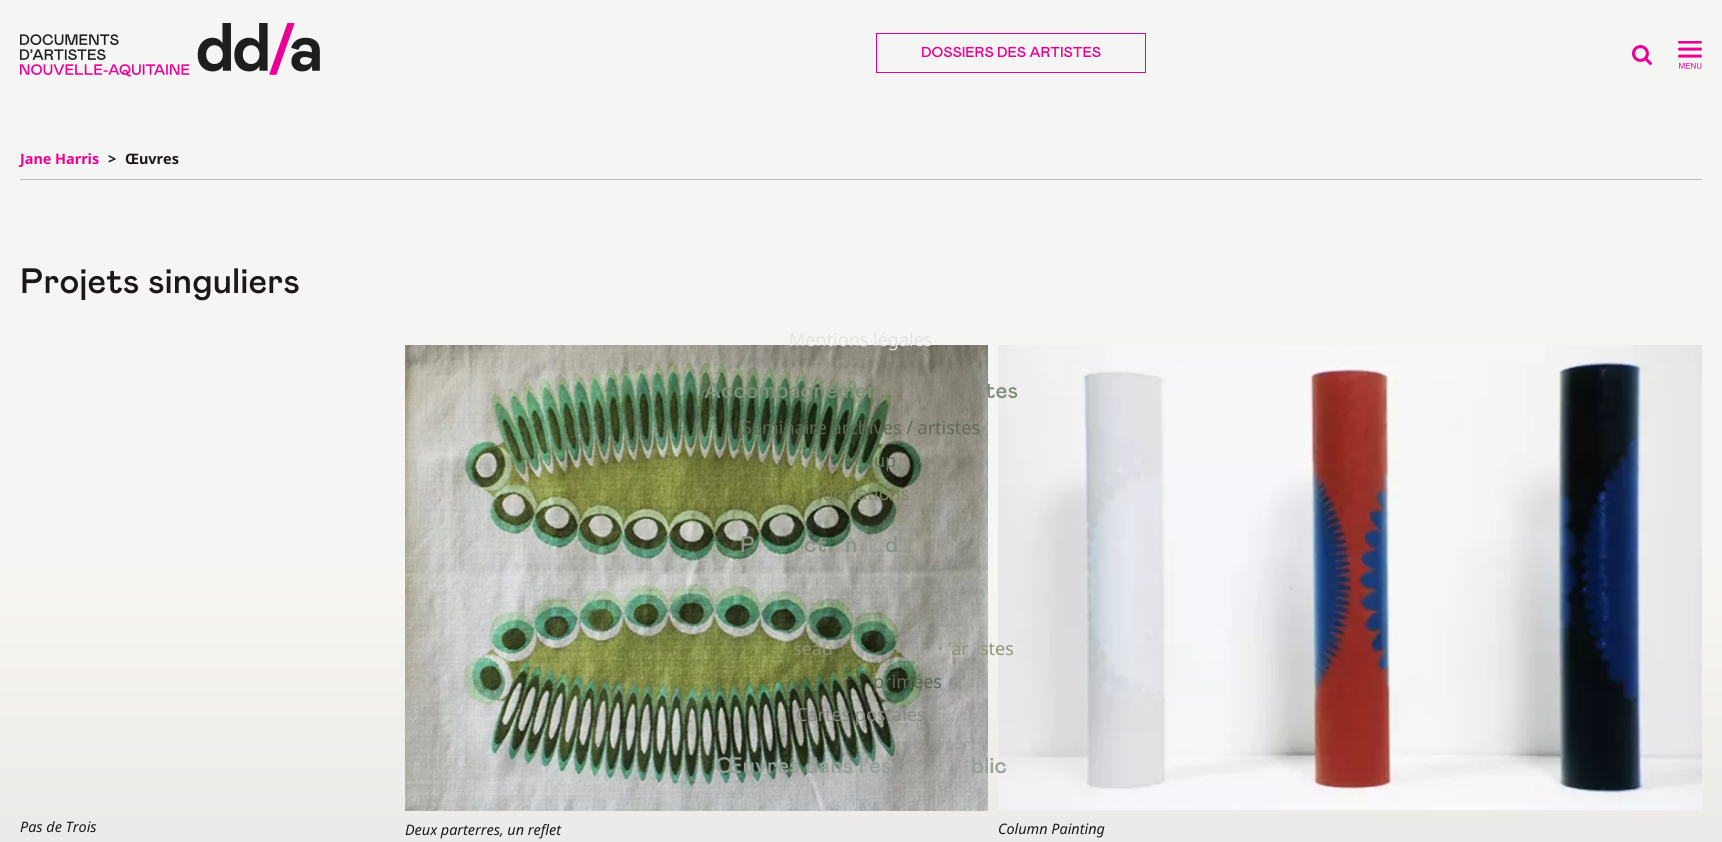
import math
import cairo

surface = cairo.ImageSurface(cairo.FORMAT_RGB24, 1722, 842)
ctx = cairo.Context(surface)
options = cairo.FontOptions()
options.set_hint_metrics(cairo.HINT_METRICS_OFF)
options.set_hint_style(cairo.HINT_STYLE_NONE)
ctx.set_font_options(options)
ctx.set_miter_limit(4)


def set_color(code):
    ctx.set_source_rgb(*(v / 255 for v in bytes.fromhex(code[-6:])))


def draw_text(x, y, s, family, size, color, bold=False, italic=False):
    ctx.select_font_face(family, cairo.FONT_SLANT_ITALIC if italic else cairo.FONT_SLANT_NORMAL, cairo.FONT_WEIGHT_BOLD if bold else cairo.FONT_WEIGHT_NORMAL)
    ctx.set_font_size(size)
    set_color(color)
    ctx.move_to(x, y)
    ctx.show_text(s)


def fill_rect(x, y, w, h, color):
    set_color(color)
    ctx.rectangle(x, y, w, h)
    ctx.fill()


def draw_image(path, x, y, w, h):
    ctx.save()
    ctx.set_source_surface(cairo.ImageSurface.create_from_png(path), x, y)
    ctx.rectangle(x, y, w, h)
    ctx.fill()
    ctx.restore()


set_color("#f5f5f4")
ctx.paint()
draw_image("assets/img1.png", 20, 23, 300, 54)
ctx.rectangle(876.5, 33.5, 269, 39)
set_color("#eb0095")
ctx.set_line_width(1)
ctx.stroke()
draw_text(921, 57, "DOSSIERS DES ARTISTES", "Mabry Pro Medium", 14.4, "#eb0095")
draw_image("assets/img2.png", 1632, 45, 20, 20)
draw_image("assets/img3.png", 1678, 41, 24, 28)
fill_rect(20, 179, 1682, 1, "#bbbbbb")
draw_text(20, 164, "Jane Harris", "Noto Sans", 14.4, "#eb0095", bold=True)
draw_text(108, 164, ">", "Noto Sans", 14.4, "#1b1817", bold=True)
draw_text(125, 164, "Œuvres", "Noto Sans", 14.4, "#1b1817", bold=True)
draw_text(20, 293, "Projets singuliers", "Mabry Pro Medium", 35.25, "#1b1817")
gradient = cairo.LinearGradient(861, 555, 861, 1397)
gradient.add_color_stop_rgba(0, 0.965, 0.965, 0.949, 1)
gradient.add_color_stop_rgba(0.5, 0.906, 0.898, 0.894, 1)
gradient.add_color_stop_rgba(1, 0.839, 0.827, 0.82, 1)
ctx.set_source(gradient)
ctx.rectangle(0, 570, 1722, 272)
ctx.fill()
draw_text(20, 832, "Pas de Trois", "Noto Sans", 14.4, "#1b1817", italic=True)
draw_image("assets/img4.png", 405, 345, 583, 466)
draw_text(405, 835, "Deux parterres, un reflet", "Noto Sans", 14.4, "#1b1817", italic=True)
draw_image("assets/img5.png", 998, 345, 704, 465)
draw_text(998, 834, "Column Painting", "Noto Sans", 14.4, "#1b1817", italic=True)
draw_text(789, 346, "Mentions légales", "Noto Sans", 18, "#e4e3e1")
draw_text(704, 398, "Accompagnemen", "Mabry Pro Medium", 22.5, "#808e79")
draw_text(985, 398, "tes", "Mabry Pro Medium", 22.5, "#808e79")
draw_text(742, 434, "Séminaire archives / artistes", "Noto Sans", 18, "#5d6954")
draw_text(874, 467, "up", "Noto Sans", 18, "#627359")
draw_text(813, 500, "Formations", "Noto Sans", 18, "#7a835a")
draw_text(740, 552, "P", "Mabry Pro Medium", 22.5, "#899185")
draw_text(804, 552, "ct", "Mabry Pro Medium", 22.5, "#899185")
draw_text(845, 552, "n", "Mabry Pro Medium", 22.5, "#899185")
draw_text(885, 552, "d", "Mabry Pro Medium", 22.5, "#899185")
draw_text(793, 655, "seau", "Noto Sans", 18, "#8e9573")
draw_text(948, 655, "’ar", "Noto Sans", 18, "#8e9573")
draw_text(980, 655, "stes", "Noto Sans", 18, "#8e9573")
draw_text(873, 688, "primées", "Noto Sans", 18, "#5d6954")
draw_text(796, 721, "Cartes postales", "Noto Sans", 18, "#868980")
draw_text(715, 773, "Œuvres dans l’es", "Mabry Pro Medium", 22.5, "#969e97")
draw_text(971, 773, "blic", "Mabry Pro Medium", 22.5, "#969e97")
surface.write_to_png("output.png")
